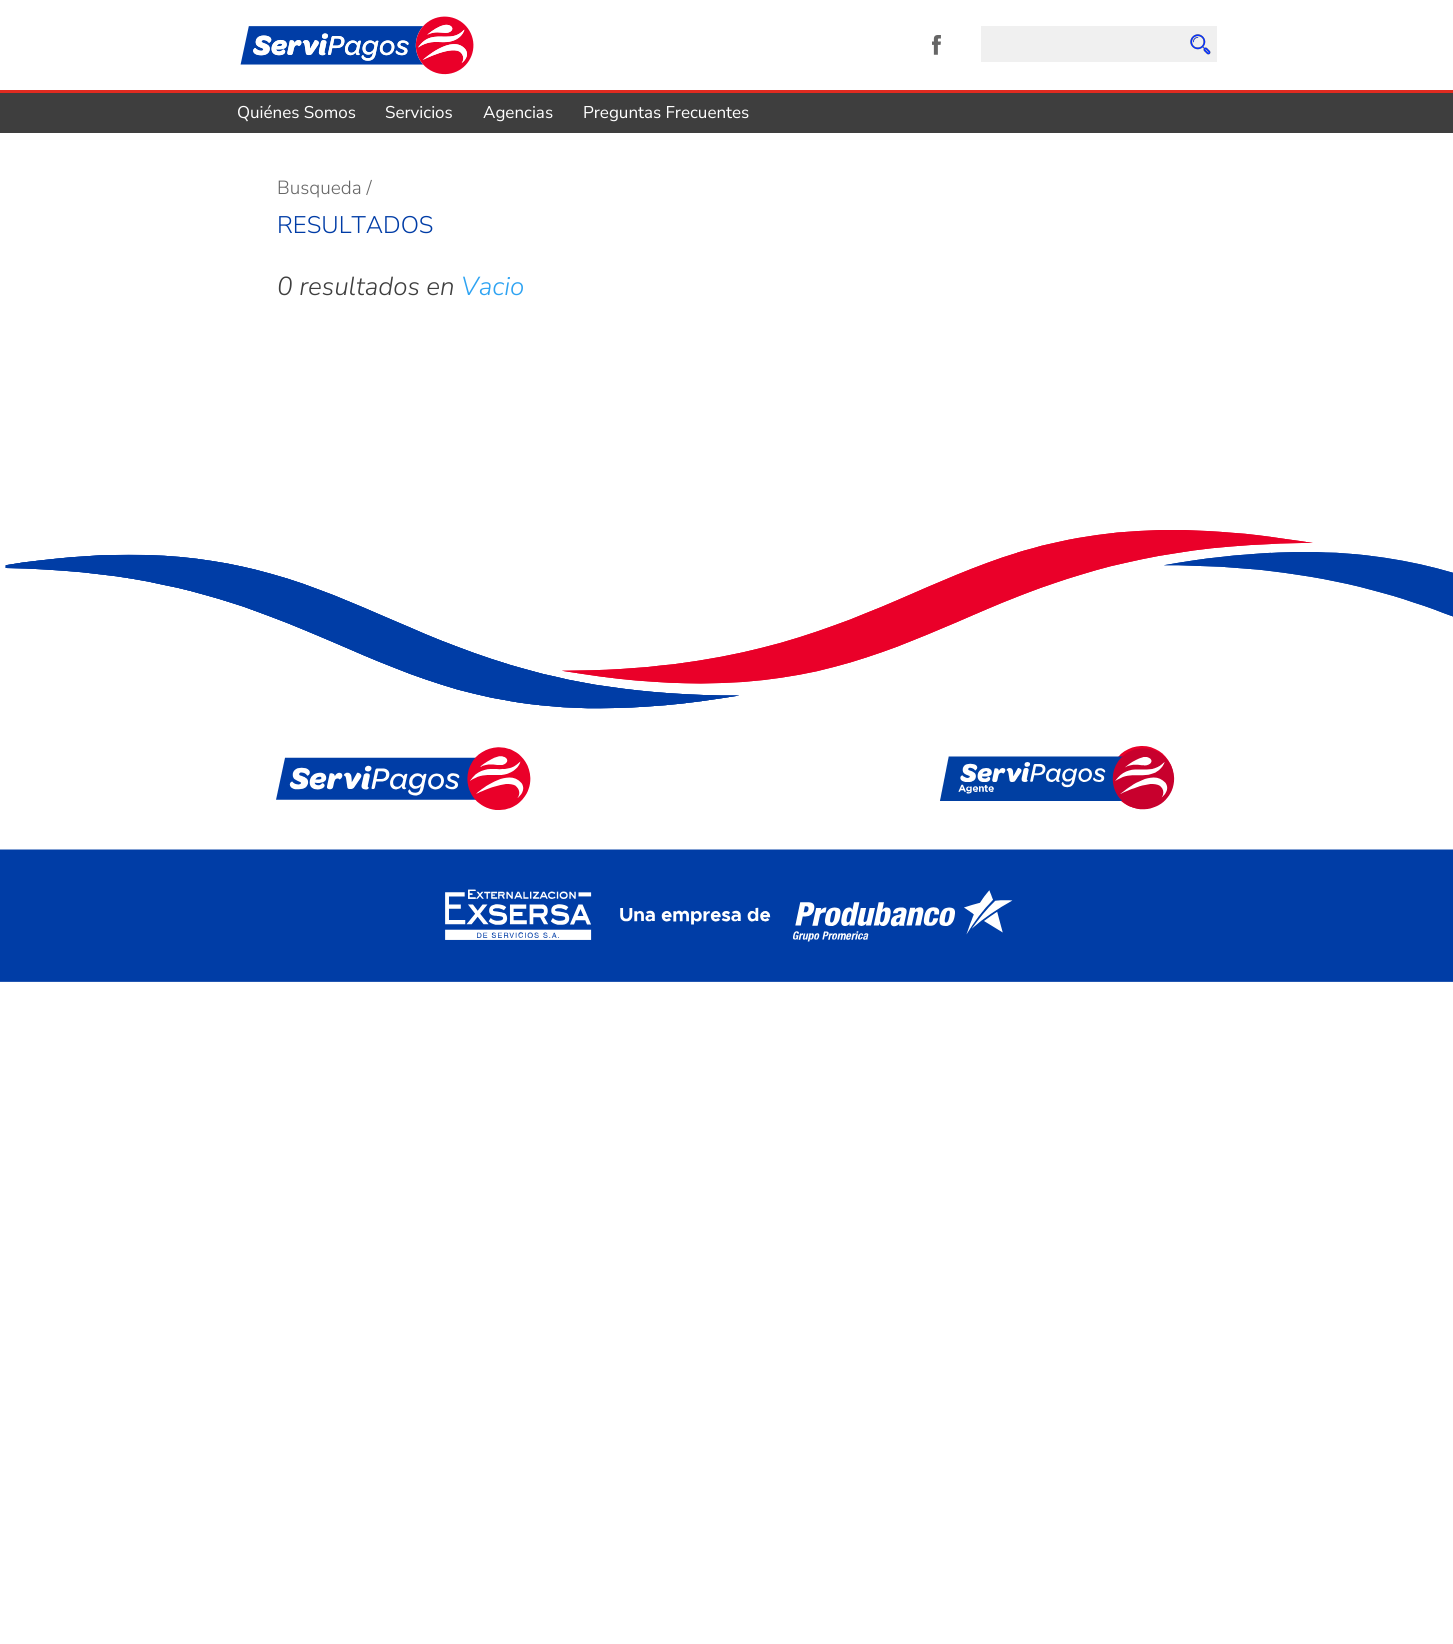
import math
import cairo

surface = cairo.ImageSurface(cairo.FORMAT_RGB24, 1453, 1644)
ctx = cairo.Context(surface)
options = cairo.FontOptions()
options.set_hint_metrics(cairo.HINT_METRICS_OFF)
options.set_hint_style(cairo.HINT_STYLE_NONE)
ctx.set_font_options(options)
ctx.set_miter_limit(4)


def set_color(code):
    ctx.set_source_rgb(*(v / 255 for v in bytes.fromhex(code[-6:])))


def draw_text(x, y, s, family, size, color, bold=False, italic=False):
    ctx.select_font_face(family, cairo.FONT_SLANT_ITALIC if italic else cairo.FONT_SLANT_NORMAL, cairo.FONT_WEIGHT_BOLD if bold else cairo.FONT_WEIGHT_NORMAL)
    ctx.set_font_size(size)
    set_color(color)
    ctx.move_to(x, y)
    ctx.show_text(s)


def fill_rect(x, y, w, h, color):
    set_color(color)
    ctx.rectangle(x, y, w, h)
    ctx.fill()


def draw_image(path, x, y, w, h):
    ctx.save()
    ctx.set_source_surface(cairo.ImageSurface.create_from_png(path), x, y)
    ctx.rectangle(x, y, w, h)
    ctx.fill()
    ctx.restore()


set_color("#ffffff")
ctx.paint()
draw_image("assets/img1.png", 240, 16, 234, 59)
draw_image("assets/img2.png", 932, 35, 9, 20)
fill_rect(981, 26, 236, 36, "#f0f0f0")
draw_image("assets/img3.png", 1190, 34, 21, 21)
fill_rect(0, 93, 1453, 40, "#3e3e3e")
fill_rect(0, 90, 1453, 3, "#e02b20")
draw_text(237, 118, "Quiénes Somos", "Nunito Sans", 17, "#ffffff")
draw_text(385, 118, "Servicios", "Nunito Sans", 17, "#ffffff")
draw_text(483, 118, "Agencias", "Nunito Sans", 17, "#ffffff")
draw_text(583, 118, "Preguntas Frecuentes", "Nunito Sans", 17, "#ffffff")
draw_text(277, 194, "Busqueda /", "Nunito Sans Light", 19, "#666666")
draw_text(277, 233, "RESULTADOS", "Nunito Sans Light", 24, "#003ca6")
draw_text(277, 295, "0 resultados en", "Nunito Sans Light", 26, "#3e3e3e", italic=True)
draw_text(461, 295, "Vacio", "Nunito Sans Light", 26, "#2ea3f2", italic=True)
draw_image("assets/img4.png", 0, 530, 1453, 452)
surface.write_to_png("output.png")
